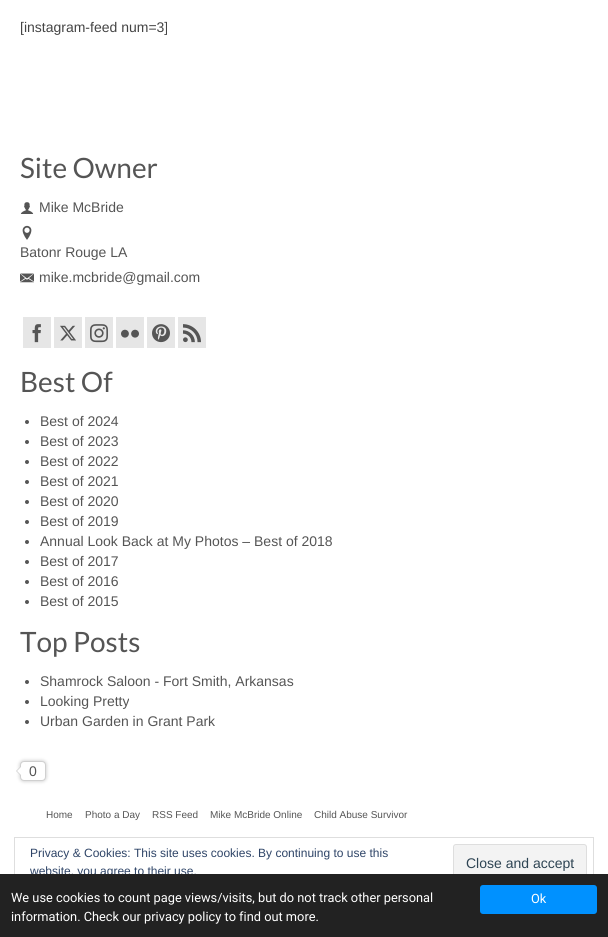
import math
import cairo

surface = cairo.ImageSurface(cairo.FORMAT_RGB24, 608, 937)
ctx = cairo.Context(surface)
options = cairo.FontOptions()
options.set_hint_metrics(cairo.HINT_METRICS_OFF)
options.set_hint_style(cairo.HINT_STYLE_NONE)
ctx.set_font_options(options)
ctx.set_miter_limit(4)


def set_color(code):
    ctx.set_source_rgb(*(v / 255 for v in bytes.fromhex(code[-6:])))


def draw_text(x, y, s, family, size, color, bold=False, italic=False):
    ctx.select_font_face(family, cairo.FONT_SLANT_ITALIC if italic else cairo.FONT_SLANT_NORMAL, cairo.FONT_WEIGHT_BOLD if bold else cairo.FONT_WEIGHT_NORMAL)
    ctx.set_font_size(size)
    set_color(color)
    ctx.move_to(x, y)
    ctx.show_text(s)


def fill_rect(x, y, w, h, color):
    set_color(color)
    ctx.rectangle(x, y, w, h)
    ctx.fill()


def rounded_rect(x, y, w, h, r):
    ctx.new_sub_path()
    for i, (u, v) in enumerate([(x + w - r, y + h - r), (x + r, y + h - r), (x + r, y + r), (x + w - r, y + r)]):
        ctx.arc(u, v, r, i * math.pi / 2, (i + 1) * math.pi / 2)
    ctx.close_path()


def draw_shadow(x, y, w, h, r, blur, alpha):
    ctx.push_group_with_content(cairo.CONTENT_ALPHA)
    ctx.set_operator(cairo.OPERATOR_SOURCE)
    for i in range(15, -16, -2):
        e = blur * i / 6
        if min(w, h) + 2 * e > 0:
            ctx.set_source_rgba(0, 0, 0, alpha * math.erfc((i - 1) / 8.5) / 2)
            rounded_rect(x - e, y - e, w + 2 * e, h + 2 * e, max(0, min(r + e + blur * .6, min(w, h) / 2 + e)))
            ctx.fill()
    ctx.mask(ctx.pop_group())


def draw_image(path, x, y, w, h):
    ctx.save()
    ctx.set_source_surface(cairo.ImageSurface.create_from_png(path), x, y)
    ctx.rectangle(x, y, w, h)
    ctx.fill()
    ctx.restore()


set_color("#ffffff")
ctx.paint()
draw_text(20, 32, "[instagram-feed num=3]", "Liberation Sans", 14, "#444444")
draw_text(20, 178, "Site Owner", "Lato", 28, "#555555")
draw_image("assets/img1.png", 20, 202, 14, 12)
draw_text(39, 212, "Mike McBride", "Liberation Sans", 14, "#555555")
draw_image("assets/img2.png", 22, 225, 10, 15)
draw_text(20, 257, "Batonr Rouge LA", "Liberation Sans", 14, "#555555")
draw_image("assets/img3.png", 20, 273, 14, 10)
draw_text(39, 282, "mike.mcbride@gmail.com", "Liberation Sans", 14, "#555555")
fill_rect(23, 317, 28, 31, "#e6e6e6")
draw_image("assets/img4.png", 32, 324, 9, 19)
fill_rect(54, 317, 28, 31, "#e6e6e6")
draw_image("assets/img5.png", 60, 325, 16, 16)
fill_rect(85, 317, 28, 31, "#e6e6e6")
draw_image("assets/img6.png", 90, 324, 18, 19)
fill_rect(116, 317, 28, 31, "#e6e6e6")
draw_image("assets/img7.png", 121, 329, 18, 9)
fill_rect(147, 317, 28, 31, "#e6e6e6")
draw_image("assets/img8.png", 152, 324, 18, 19)
fill_rect(178, 317, 28, 31, "#e6e6e6")
draw_image("assets/img9.png", 183, 324, 18, 19)
draw_text(20, 392, "Best Of", "Lato", 28, "#555555")
ctx.new_path()
ctx.arc(27, 422, 2, 0, 2 * math.pi)
ctx.fill()
draw_text(40, 426, "Best of 2024", "Liberation Sans", 14, "#555555")
ctx.new_path()
ctx.arc(27, 442, 2, 0, 2 * math.pi)
ctx.fill()
draw_text(40, 446, "Best of 2023", "Liberation Sans", 14, "#555555")
ctx.new_path()
ctx.arc(27, 462, 2, 0, 2 * math.pi)
ctx.fill()
draw_text(40, 466, "Best of 2022", "Liberation Sans", 14, "#555555")
ctx.new_path()
ctx.arc(27, 482, 2, 0, 2 * math.pi)
ctx.fill()
draw_text(40, 486, "Best of 2021", "Liberation Sans", 14, "#555555")
ctx.new_path()
ctx.arc(27, 502, 2, 0, 2 * math.pi)
ctx.fill()
draw_text(40, 506, "Best of 2020", "Liberation Sans", 14, "#555555")
ctx.new_path()
ctx.arc(27, 522, 2, 0, 2 * math.pi)
ctx.fill()
draw_text(40, 526, "Best of 2019", "Liberation Sans", 14, "#555555")
ctx.new_path()
ctx.arc(27, 542, 2, 0, 2 * math.pi)
ctx.fill()
draw_text(40, 546, "Annual Look Back at My Photos – Best of 2018", "Liberation Sans", 14, "#555555")
ctx.new_path()
ctx.arc(27, 562, 2, 0, 2 * math.pi)
ctx.fill()
draw_text(40, 566, "Best of 2017", "Liberation Sans", 14, "#555555")
ctx.new_path()
ctx.arc(27, 582, 2, 0, 2 * math.pi)
ctx.fill()
draw_text(40, 586, "Best of 2016", "Liberation Sans", 14, "#555555")
ctx.new_path()
ctx.arc(27, 602, 2, 0, 2 * math.pi)
ctx.fill()
draw_text(40, 606, "Best of 2015", "Liberation Sans", 14, "#555555")
draw_text(20, 652, "Top Posts", "Lato", 28, "#555555")
ctx.new_path()
ctx.arc(27, 682, 2, 0, 2 * math.pi)
ctx.fill()
draw_text(40, 686, "Shamrock Saloon - Fort Smith, Arkansas", "Liberation Sans", 14, "#555555")
ctx.new_path()
ctx.arc(27, 702, 2, 0, 2 * math.pi)
ctx.fill()
draw_text(40, 706, "Looking Pretty", "Liberation Sans", 14, "#555555")
ctx.new_path()
ctx.arc(27, 722, 2, 0, 2 * math.pi)
ctx.fill()
draw_text(40, 726, "Urban Garden in Grant Park", "Liberation Sans", 14, "#555555")
set_color("#dadada")
draw_shadow(19, 760, 28, 22, 5, 1.5, 1)
set_color("#ffffff")
rounded_rect(20.5, 761.5, 25, 19, 3.5)
ctx.fill_preserve()
set_color("#d0d0d0")
ctx.set_line_width(1)
ctx.stroke()
ctx.new_path()
ctx.move_to(21, 766)
ctx.line_to(21, 776)
ctx.line_to(16, 771)
ctx.close_path()
ctx.fill()
set_color("#ffffff")
ctx.new_path()
ctx.move_to(22, 766)
ctx.line_to(22, 776)
ctx.line_to(17, 771)
ctx.close_path()
ctx.fill()
draw_text(29, 776, "0", "Liberation Sans", 14, "#555555")
draw_text(46, 818, "Home", "Liberation Sans", 10, "#555555")
draw_text(85, 818, "Photo a Day", "Liberation Sans", 10, "#555555")
draw_text(152, 818, "RSS Feed", "Liberation Sans", 10, "#555555")
draw_text(210, 818, "Mike McBride Online", "Liberation Sans", 10, "#555555")
draw_text(314, 818, "Child Abuse Survivor", "Liberation Sans", 10, "#555555")
ctx.rectangle(14.5, 837.5, 579, 85)
set_color("#dedede")
ctx.stroke()
draw_text(30, 857, "Privacy & Cookies: This site uses cookies. By continuing to use this", "Liberation Sans", 12, "#2e4467")
draw_text(30, 875, "website, you agree to their use.", "Liberation Sans", 12, "#2e4467")
set_color("#f3f3f3")
rounded_rect(453.5, 844.5, 133, 38, 2.5)
ctx.fill_preserve()
set_color("#dedede")
ctx.stroke()
draw_text(466, 868, "Close and accept", "Liberation Sans", 14, "#2e4453")
fill_rect(0, 874, 608, 63, "#222222")
draw_text(11, 902, "We use cookies to count page views/visits, but do not track other personal", "Roboto", 12.8, "#ffffff")
draw_text(11, 921, "information. Check our privacy policy to find out more.", "Roboto", 12.8, "#ffffff")
set_color("#0091ff")
rounded_rect(480, 885, 117, 29, 3)
ctx.fill()
draw_text(531, 903, "Ok", "Roboto", 12.8, "#ffffff")
surface.write_to_png("output.png")
